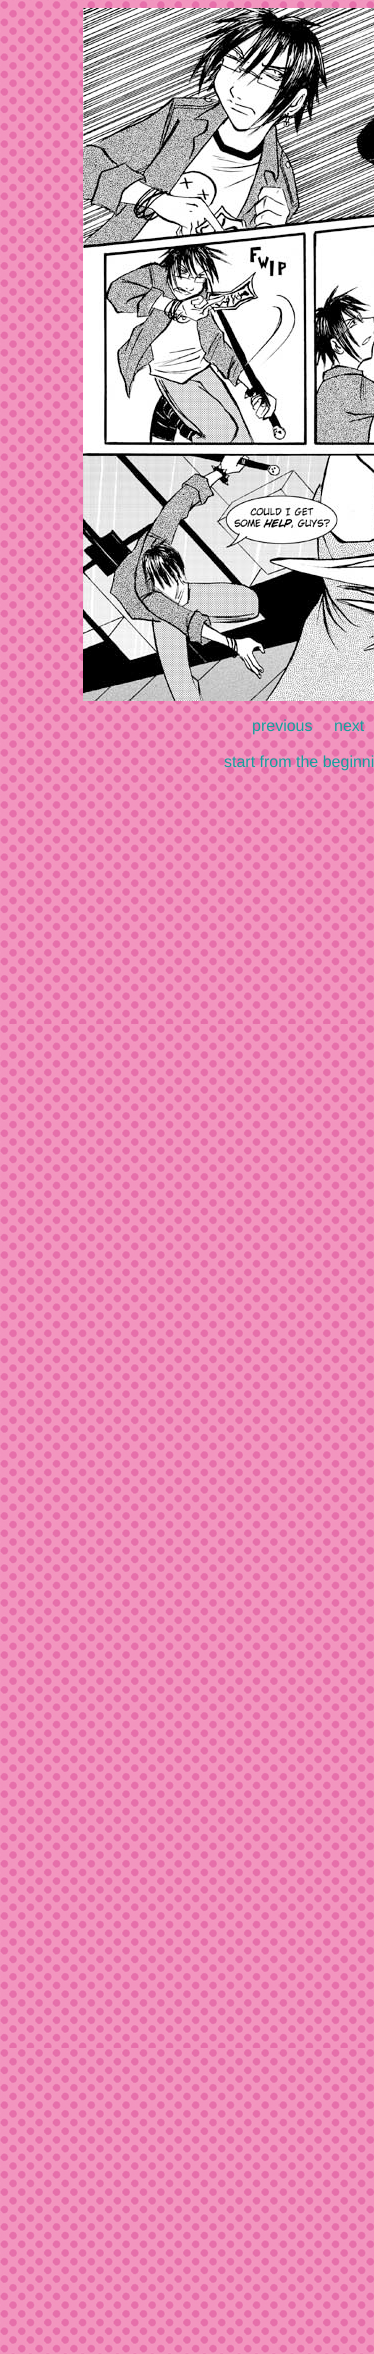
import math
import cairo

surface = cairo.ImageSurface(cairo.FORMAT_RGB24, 374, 2354)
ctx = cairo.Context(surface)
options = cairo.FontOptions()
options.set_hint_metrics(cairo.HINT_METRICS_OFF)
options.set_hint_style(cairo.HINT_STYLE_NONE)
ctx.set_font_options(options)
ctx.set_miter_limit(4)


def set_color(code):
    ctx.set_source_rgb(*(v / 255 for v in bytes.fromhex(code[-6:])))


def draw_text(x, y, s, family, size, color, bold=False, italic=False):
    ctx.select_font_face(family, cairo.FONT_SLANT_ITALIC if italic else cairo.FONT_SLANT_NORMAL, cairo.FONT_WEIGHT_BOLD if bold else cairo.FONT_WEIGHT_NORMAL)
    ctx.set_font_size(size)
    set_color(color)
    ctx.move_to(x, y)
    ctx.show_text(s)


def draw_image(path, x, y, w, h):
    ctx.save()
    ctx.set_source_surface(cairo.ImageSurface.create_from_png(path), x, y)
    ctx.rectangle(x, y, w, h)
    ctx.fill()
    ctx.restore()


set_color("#ffffff")
ctx.paint()
draw_image("assets/img1.png", 0, 0, 374, 2354)
draw_image("assets/img2.png", 83, 8, 291, 693)
draw_text(252, 731, "previous", "Liberation Sans", 16, "#15a09d")
draw_text(334, 731, "next", "Liberation Sans", 16, "#15a09d")
draw_text(224, 767, "start from the beginni", "Liberation Sans", 16, "#15a09d")
surface.write_to_png("output.png")
